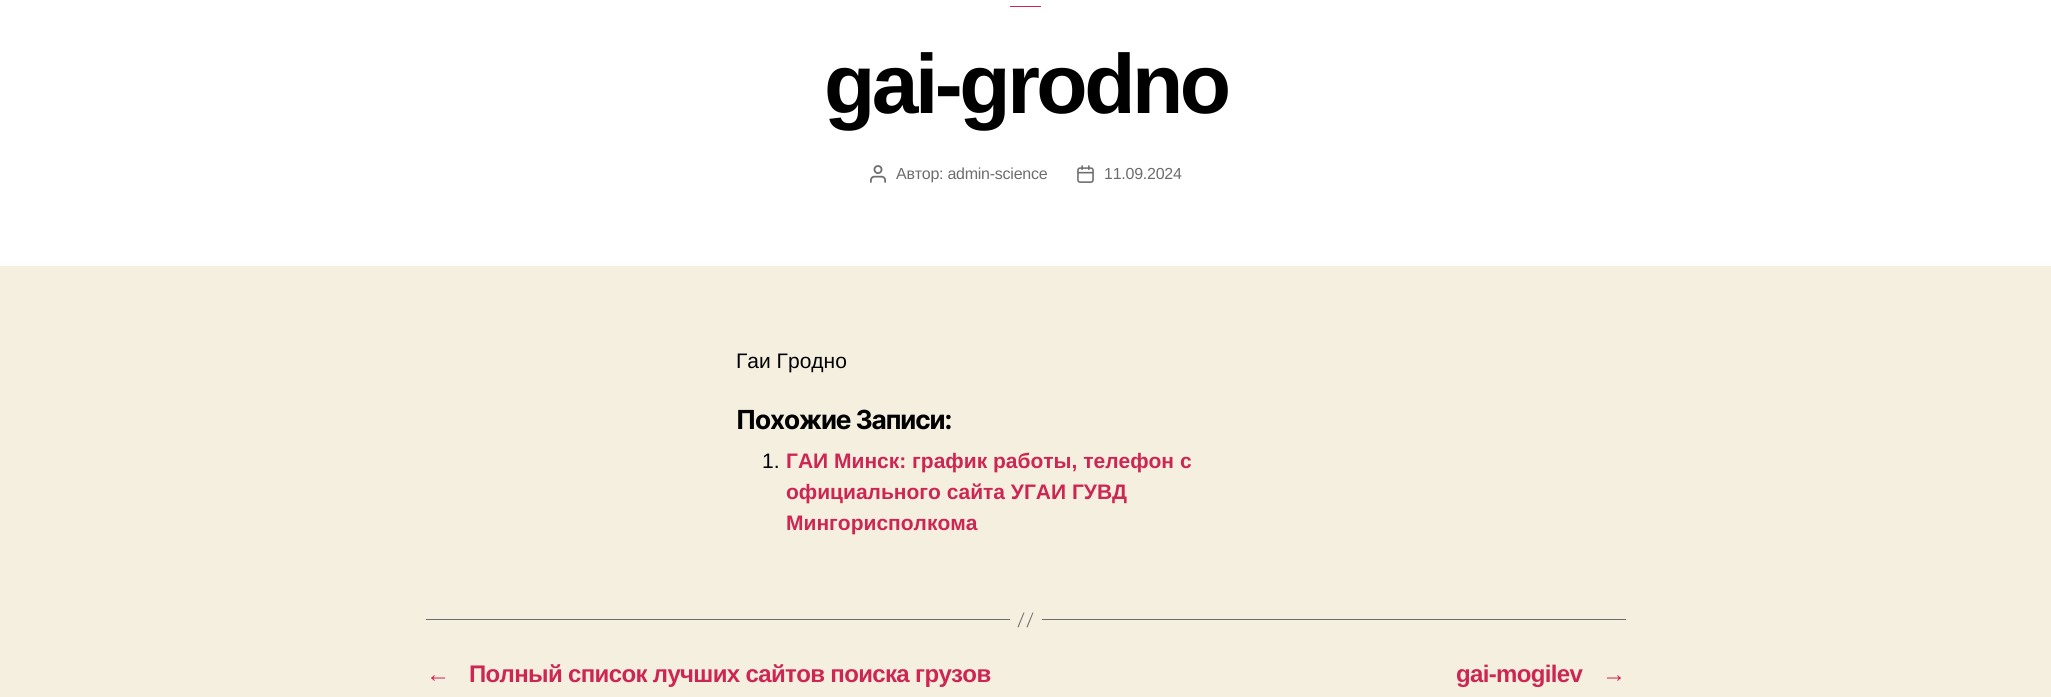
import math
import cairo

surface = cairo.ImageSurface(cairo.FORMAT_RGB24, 2051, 697)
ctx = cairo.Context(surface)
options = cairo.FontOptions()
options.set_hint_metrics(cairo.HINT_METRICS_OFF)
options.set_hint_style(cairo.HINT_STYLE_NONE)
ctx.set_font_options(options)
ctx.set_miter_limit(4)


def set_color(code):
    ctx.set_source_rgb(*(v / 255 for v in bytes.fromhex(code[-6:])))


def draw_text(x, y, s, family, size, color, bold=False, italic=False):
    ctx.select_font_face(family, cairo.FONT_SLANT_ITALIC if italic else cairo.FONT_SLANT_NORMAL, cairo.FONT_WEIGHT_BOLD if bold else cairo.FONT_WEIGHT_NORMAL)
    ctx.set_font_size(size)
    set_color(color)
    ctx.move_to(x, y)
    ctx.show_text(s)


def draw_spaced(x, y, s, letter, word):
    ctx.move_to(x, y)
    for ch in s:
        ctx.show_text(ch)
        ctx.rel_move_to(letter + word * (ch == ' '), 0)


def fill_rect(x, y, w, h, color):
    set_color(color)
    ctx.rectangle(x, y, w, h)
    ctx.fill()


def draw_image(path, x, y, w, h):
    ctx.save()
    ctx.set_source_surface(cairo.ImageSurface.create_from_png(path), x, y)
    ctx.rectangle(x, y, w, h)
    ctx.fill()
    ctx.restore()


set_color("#f5efe0")
ctx.paint()
fill_rect(0, 0, 2051, 266, "#ffffff")
fill_rect(1010, 6, 31, 1, "#cd2653")
ctx.select_font_face("Liberation Sans", cairo.FONT_SLANT_NORMAL, cairo.FONT_WEIGHT_BOLD)
ctx.set_font_size(84)
set_color("#000000")
draw_spaced(824, 113, "gai-grodno", -3.5, 0)
draw_image("assets/img1.png", 870, 165, 16, 18)
ctx.select_font_face("Liberation Sans")
ctx.set_font_size(16)
set_color("#6d6d6d")
draw_spaced(896, 179, "Автор: admin-science", -0.25, 0)
draw_image("assets/img2.png", 1077, 165, 17, 18)
draw_spaced(1104, 179, "11.09.2024", -0.25, 0)
draw_text(736, 368, "Гаи Гродно", "Liberation Sans", 21, "#000000")
ctx.select_font_face("Inter", cairo.FONT_SLANT_NORMAL, cairo.FONT_WEIGHT_BOLD)
ctx.set_font_size(26.25)
draw_spaced(736, 429, "Похожие Записи:", -1.1, 0)
draw_text(762, 468, "1.", "Liberation Sans", 21, "#000000")
draw_text(786, 468, "ГАИ Минск: график работы, телефон с", "Liberation Sans", 21, "#cd2653", bold=True)
draw_text(786, 499, "официального сайта УГАИ ГУВД", "Liberation Sans", 21, "#cd2653", bold=True)
draw_text(786, 530, "Мингорисполкома", "Liberation Sans", 21, "#cd2653", bold=True)
fill_rect(1042, 619, 584, 1, "#6d6d6d")
fill_rect(426, 619, 584, 1, "#6d6d6d")
ctx.new_path()
ctx.move_to(1023.5, 612.5)
ctx.line_to(1024.5, 612.5)
ctx.line_to(1018.5, 627.5)
ctx.line_to(1017.5, 627)
ctx.close_path()
ctx.move_to(1032.5, 612.5)
ctx.line_to(1033.5, 612.5)
ctx.line_to(1027.5, 627.5)
ctx.line_to(1026.5, 627)
ctx.close_path()
ctx.fill()
ctx.set_font_size(24)
set_color("#cd2653")
draw_spaced(426, 682, "←", -0.65, 0)
draw_spaced(469, 682, "Полный список лучших сайтов поиска грузов", -0.65, 0)
draw_spaced(1456, 682, "gai-mogilev", -0.65, 0)
draw_spaced(1602, 682, "→", -0.65, 0)
surface.write_to_png("output.png")
